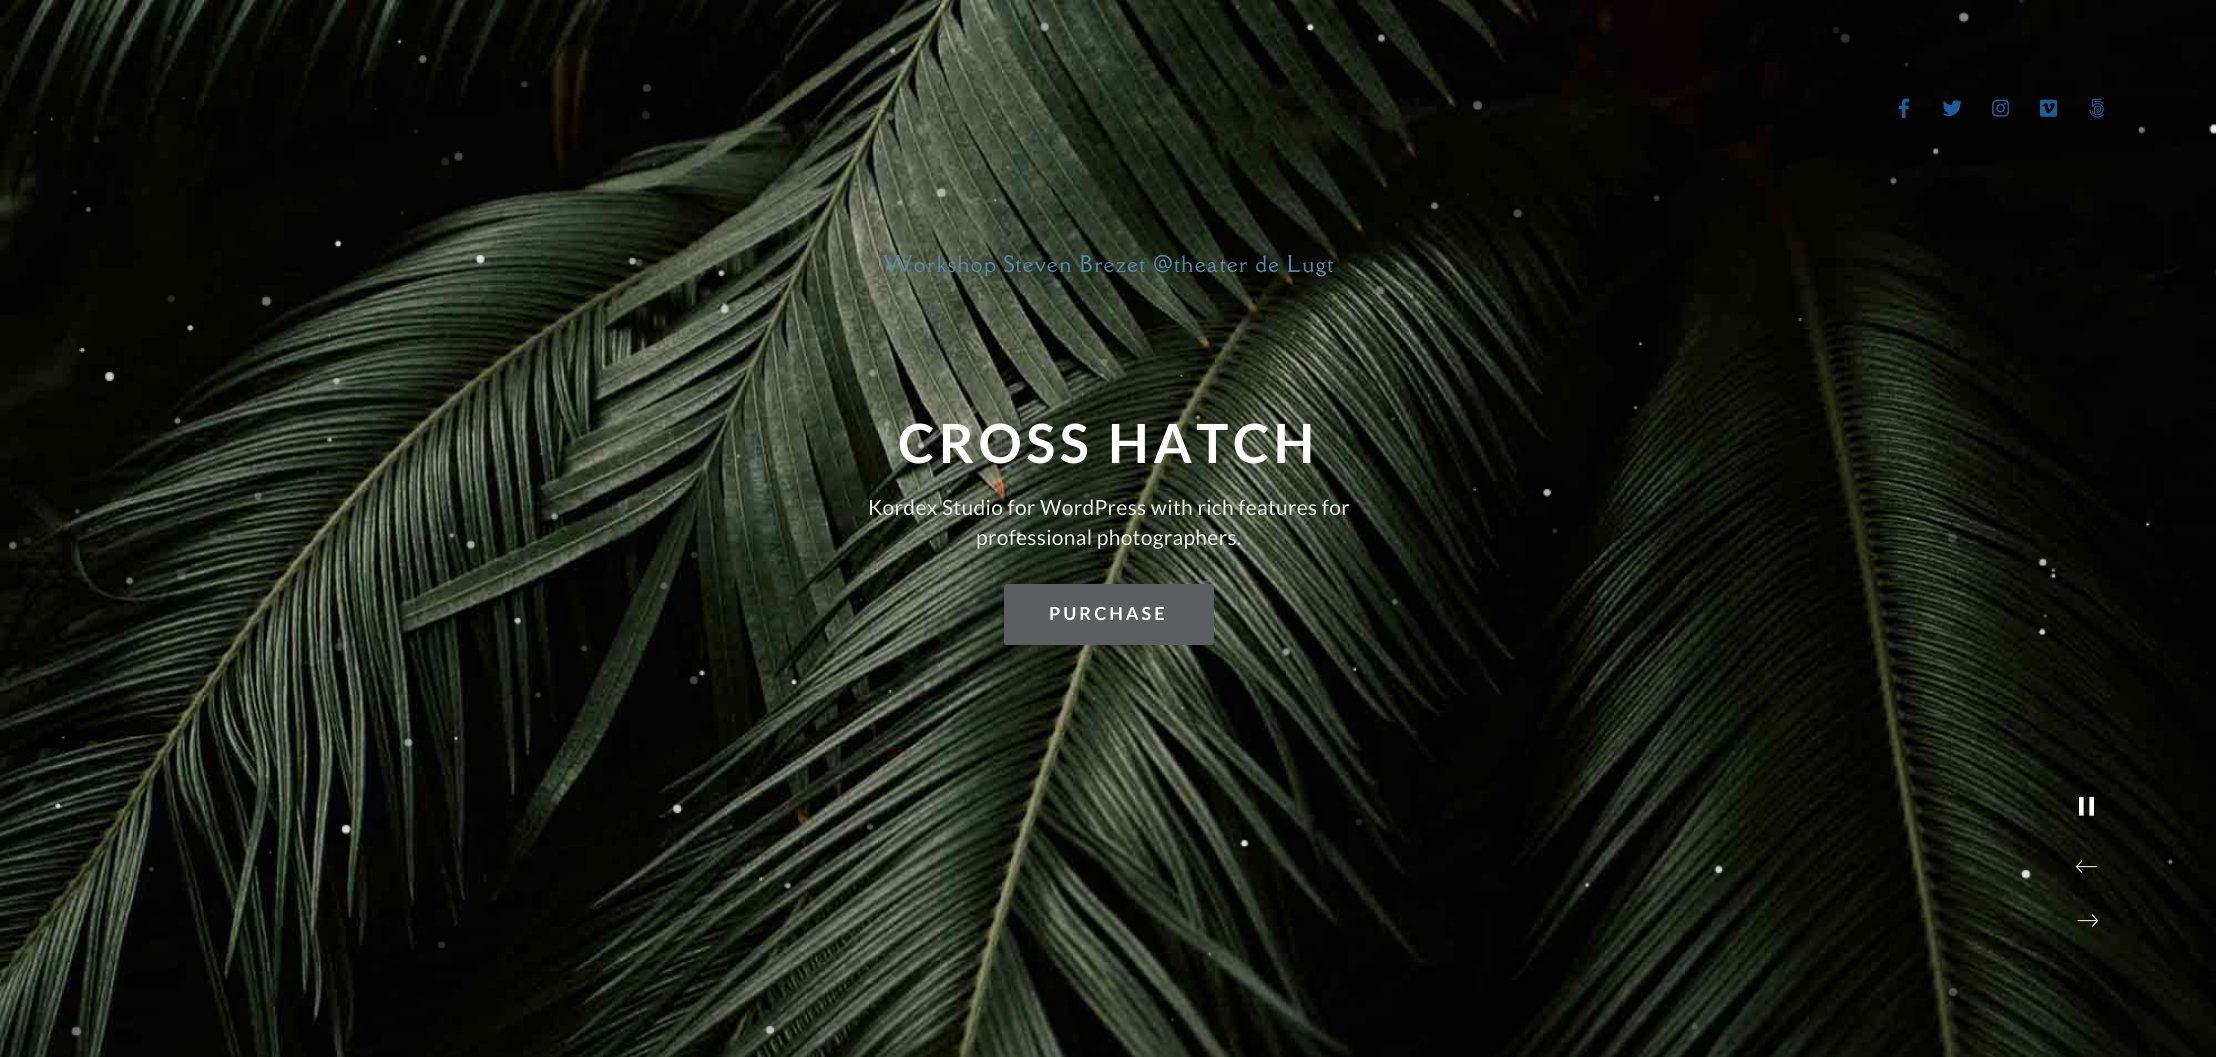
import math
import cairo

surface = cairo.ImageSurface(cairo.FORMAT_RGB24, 2216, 1057)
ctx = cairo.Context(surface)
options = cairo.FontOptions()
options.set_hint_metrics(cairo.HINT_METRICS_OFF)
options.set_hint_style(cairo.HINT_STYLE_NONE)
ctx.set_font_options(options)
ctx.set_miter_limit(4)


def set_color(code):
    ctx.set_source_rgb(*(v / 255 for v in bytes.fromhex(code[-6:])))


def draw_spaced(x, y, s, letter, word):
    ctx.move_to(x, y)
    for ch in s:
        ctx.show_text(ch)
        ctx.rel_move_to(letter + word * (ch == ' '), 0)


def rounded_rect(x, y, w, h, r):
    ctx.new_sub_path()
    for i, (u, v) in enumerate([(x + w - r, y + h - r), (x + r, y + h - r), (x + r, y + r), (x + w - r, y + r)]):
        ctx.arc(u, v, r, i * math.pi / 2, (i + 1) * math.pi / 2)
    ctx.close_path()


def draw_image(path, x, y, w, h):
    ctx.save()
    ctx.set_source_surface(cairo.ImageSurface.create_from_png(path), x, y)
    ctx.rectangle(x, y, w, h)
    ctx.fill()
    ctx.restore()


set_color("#ffffff")
ctx.paint()
draw_image("assets/img1.png", 0, 0, 2216, 1057)
draw_image("assets/img7.png", 8, 0, 2208, 1049)
draw_image("assets/img2.png", 1899, 98, 11, 20)
draw_image("assets/img3.png", 1942, 100, 20, 17)
draw_image("assets/img4.png", 1992, 99, 18, 18)
draw_image("assets/img5.png", 2040, 99, 18, 18)
draw_image("assets/img6.png", 2089, 98, 15, 20)
ctx.select_font_face("Della Respira")
ctx.set_font_size(21)
set_color("#598aaf")
draw_spaced(883, 272, "Workshop Steven Brezet @theater de Lugt", 1.5, 0)
ctx.select_font_face("Lato", cairo.FONT_SLANT_NORMAL, cairo.FONT_WEIGHT_BOLD)
ctx.set_font_size(54)
set_color("#ffffff")
draw_spaced(898, 463, "CROSS HATCH", 4.5, 0)
ctx.select_font_face("Lato")
ctx.set_font_size(21)
set_color("#ebecea")
draw_spaced(868, 515, "Kordex Studio for WordPress with rich features for", 0.3, 0)
draw_spaced(976, 545, "professional photographers.", 0.3, 0)
set_color("#5d5e62")
rounded_rect(1005.5, 585.5, 207, 58, 1.5)
ctx.fill_preserve()
ctx.set_line_width(3)
ctx.stroke()
ctx.select_font_face("Lato", cairo.FONT_SLANT_NORMAL, cairo.FONT_WEIGHT_BOLD)
ctx.set_font_size(18)
set_color("#ffffff")
draw_spaced(1049, 620, "PURCHASE", 3, 0)
draw_image("assets/img8.png", 2079, 796, 15, 20)
draw_image("assets/img9.png", 2076, 860, 21, 13)
draw_image("assets/img10.png", 2077, 914, 22, 13)
surface.write_to_png("output.png")
